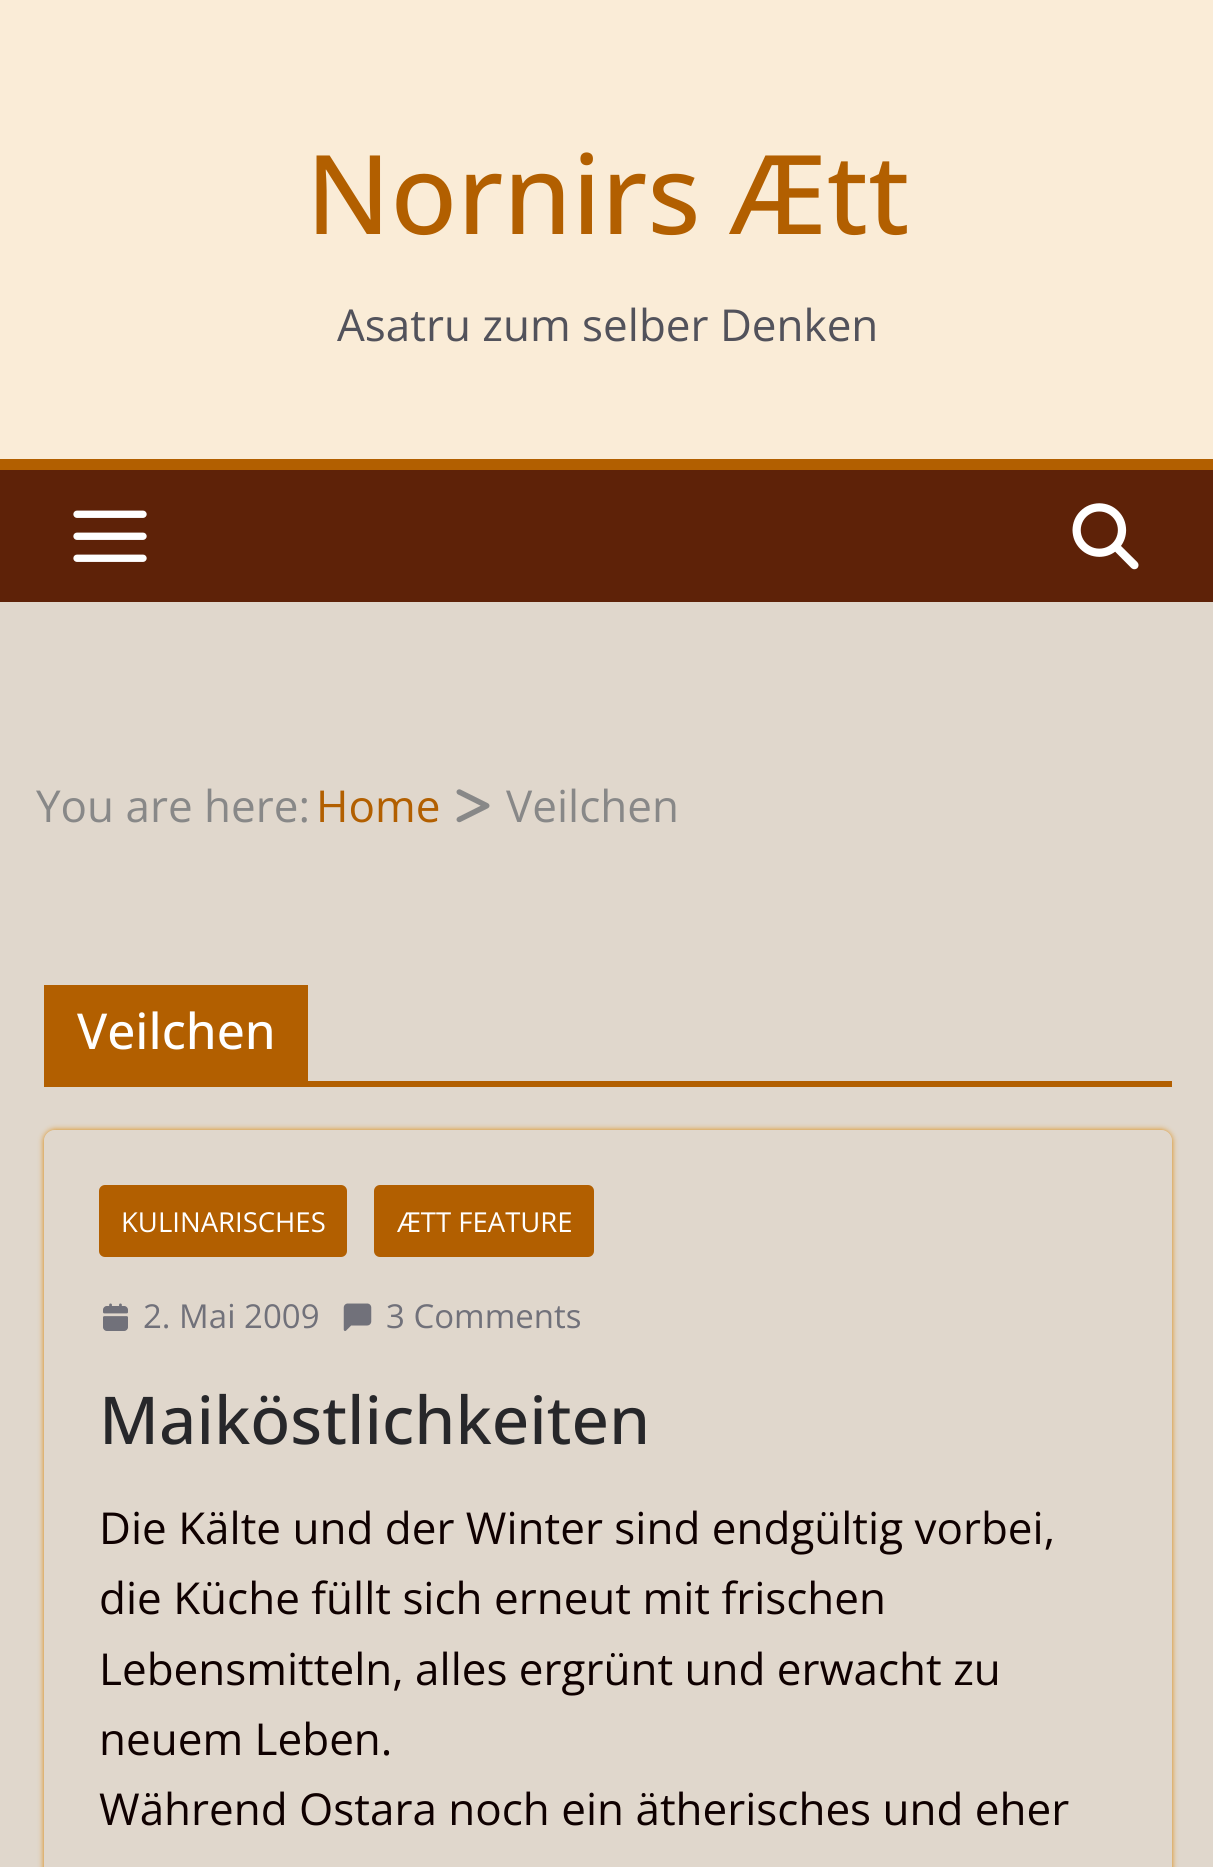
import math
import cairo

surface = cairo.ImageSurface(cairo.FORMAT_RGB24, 1213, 1867)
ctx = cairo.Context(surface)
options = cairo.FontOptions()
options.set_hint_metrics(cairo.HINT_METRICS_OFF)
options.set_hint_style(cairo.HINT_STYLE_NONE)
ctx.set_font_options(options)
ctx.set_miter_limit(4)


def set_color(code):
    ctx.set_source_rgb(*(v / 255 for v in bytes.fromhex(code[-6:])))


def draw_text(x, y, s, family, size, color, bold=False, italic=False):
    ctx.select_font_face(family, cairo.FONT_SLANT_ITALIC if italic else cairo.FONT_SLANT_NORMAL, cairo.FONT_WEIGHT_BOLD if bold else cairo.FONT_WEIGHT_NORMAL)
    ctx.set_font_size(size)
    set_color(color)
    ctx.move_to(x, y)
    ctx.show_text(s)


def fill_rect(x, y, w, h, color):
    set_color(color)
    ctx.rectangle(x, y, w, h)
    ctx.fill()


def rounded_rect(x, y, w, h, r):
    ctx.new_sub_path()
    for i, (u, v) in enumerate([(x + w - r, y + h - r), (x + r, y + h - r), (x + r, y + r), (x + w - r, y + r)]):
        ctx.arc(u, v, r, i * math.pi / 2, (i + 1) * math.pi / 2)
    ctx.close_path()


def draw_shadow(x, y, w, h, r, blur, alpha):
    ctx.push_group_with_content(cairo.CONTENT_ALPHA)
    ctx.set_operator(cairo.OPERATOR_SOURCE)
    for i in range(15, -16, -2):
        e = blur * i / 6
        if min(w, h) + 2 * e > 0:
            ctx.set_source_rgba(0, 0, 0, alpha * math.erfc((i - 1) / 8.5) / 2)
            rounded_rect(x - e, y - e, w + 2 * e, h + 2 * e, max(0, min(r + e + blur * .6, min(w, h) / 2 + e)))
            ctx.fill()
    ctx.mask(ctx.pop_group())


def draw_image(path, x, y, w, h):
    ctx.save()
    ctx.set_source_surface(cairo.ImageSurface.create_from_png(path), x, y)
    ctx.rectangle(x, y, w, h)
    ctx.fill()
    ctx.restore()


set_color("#faecd7")
ctx.paint()
draw_text(306, 234, "Nornirs Ætt", "Open Sans Medium", 110, "#b25f00")
draw_text(337, 341, "Asatru zum selber Denken", "Open Sans", 44, "#52525b")
fill_rect(0, 470, 1213, 132, "#5e2208")
fill_rect(0, 459, 1213, 11, "#b25f00")
draw_image("assets/img1.png", 73, 510, 74, 52)
draw_image("assets/img2.png", 1072, 503, 67, 67)
fill_rect(0, 602, 1213, 1265, "#e0d7cc")
draw_text(36, 822, "You are here:", "Open Sans", 44, "#888888")
draw_text(316, 822, "Home", "Open Sans", 44, "#b25f00")
draw_image("assets/img3.png", 456, 789, 34, 34)
draw_text(506, 822, "Veilchen", "Open Sans", 44, "#888888")
fill_rect(44, 1081, 1128, 6, "#b25f00")
fill_rect(44, 985, 264, 96, "#b25f00")
draw_text(77, 1049, "Veilchen", "Open Sans Medium", 49.5, "#ffffff")
ctx.save()
ctx.set_fill_rule(cairo.FILL_RULE_EVEN_ODD)
ctx.new_path()
ctx.move_to(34, 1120)
ctx.line_to(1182, 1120)
ctx.line_to(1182, 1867)
ctx.line_to(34, 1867)
ctx.close_path()
ctx.move_to(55, 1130)
ctx.line_to(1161, 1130)
ctx.curve_to(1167, 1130, 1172, 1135, 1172, 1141)
ctx.line_to(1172, 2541)
ctx.curve_to(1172, 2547, 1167, 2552, 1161, 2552)
ctx.line_to(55, 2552)
ctx.curve_to(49, 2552, 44, 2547, 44, 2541)
ctx.line_to(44, 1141)
ctx.curve_to(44, 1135, 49, 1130, 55, 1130)
ctx.close_path()
ctx.clip()
set_color("#dd8808")
draw_shadow(44, 1130, 1128, 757, 11, 3, 1)
ctx.restore()
set_color("#b25f00")
rounded_rect(99, 1185, 248, 72, 6)
ctx.fill()
draw_text(121, 1232, "KULINARISCHES", "Open Sans", 27.5, "#ffffff")
set_color("#b25f00")
rounded_rect(374, 1185, 220, 72, 6)
ctx.fill()
draw_text(397, 1232, "ÆTT FEATURE", "Open Sans", 27.5, "#ffffff")
draw_image("assets/img4.png", 103, 1303, 25, 28)
draw_text(143, 1328, "2. Mai 2009", "Open Sans", 33, "#71717a")
draw_image("assets/img5.png", 343, 1303, 29, 28)
draw_text(386, 1328, "3 Comments", "Open Sans", 33, "#71717a")
draw_text(99, 1444, "Maiköstlichkeiten", "Open Sans Medium", 66, "#27272a")
draw_text(99, 1544, "Die Kälte und der Winter sind endgültig vorbei,", "Open Sans", 44, "#0f0000")
draw_text(99, 1614, "die Küche füllt sich erneut mit frischen", "Open Sans", 44, "#0f0000")
draw_text(99, 1685, "Lebensmitteln, alles ergrünt und erwacht zu", "Open Sans", 44, "#0f0000")
draw_text(99, 1755, "neuem Leben.", "Open Sans", 44, "#0f0000")
draw_text(99, 1825, "Während Ostara noch ein ätherisches und eher", "Open Sans", 44, "#0f0000")
surface.write_to_png("output.png")
